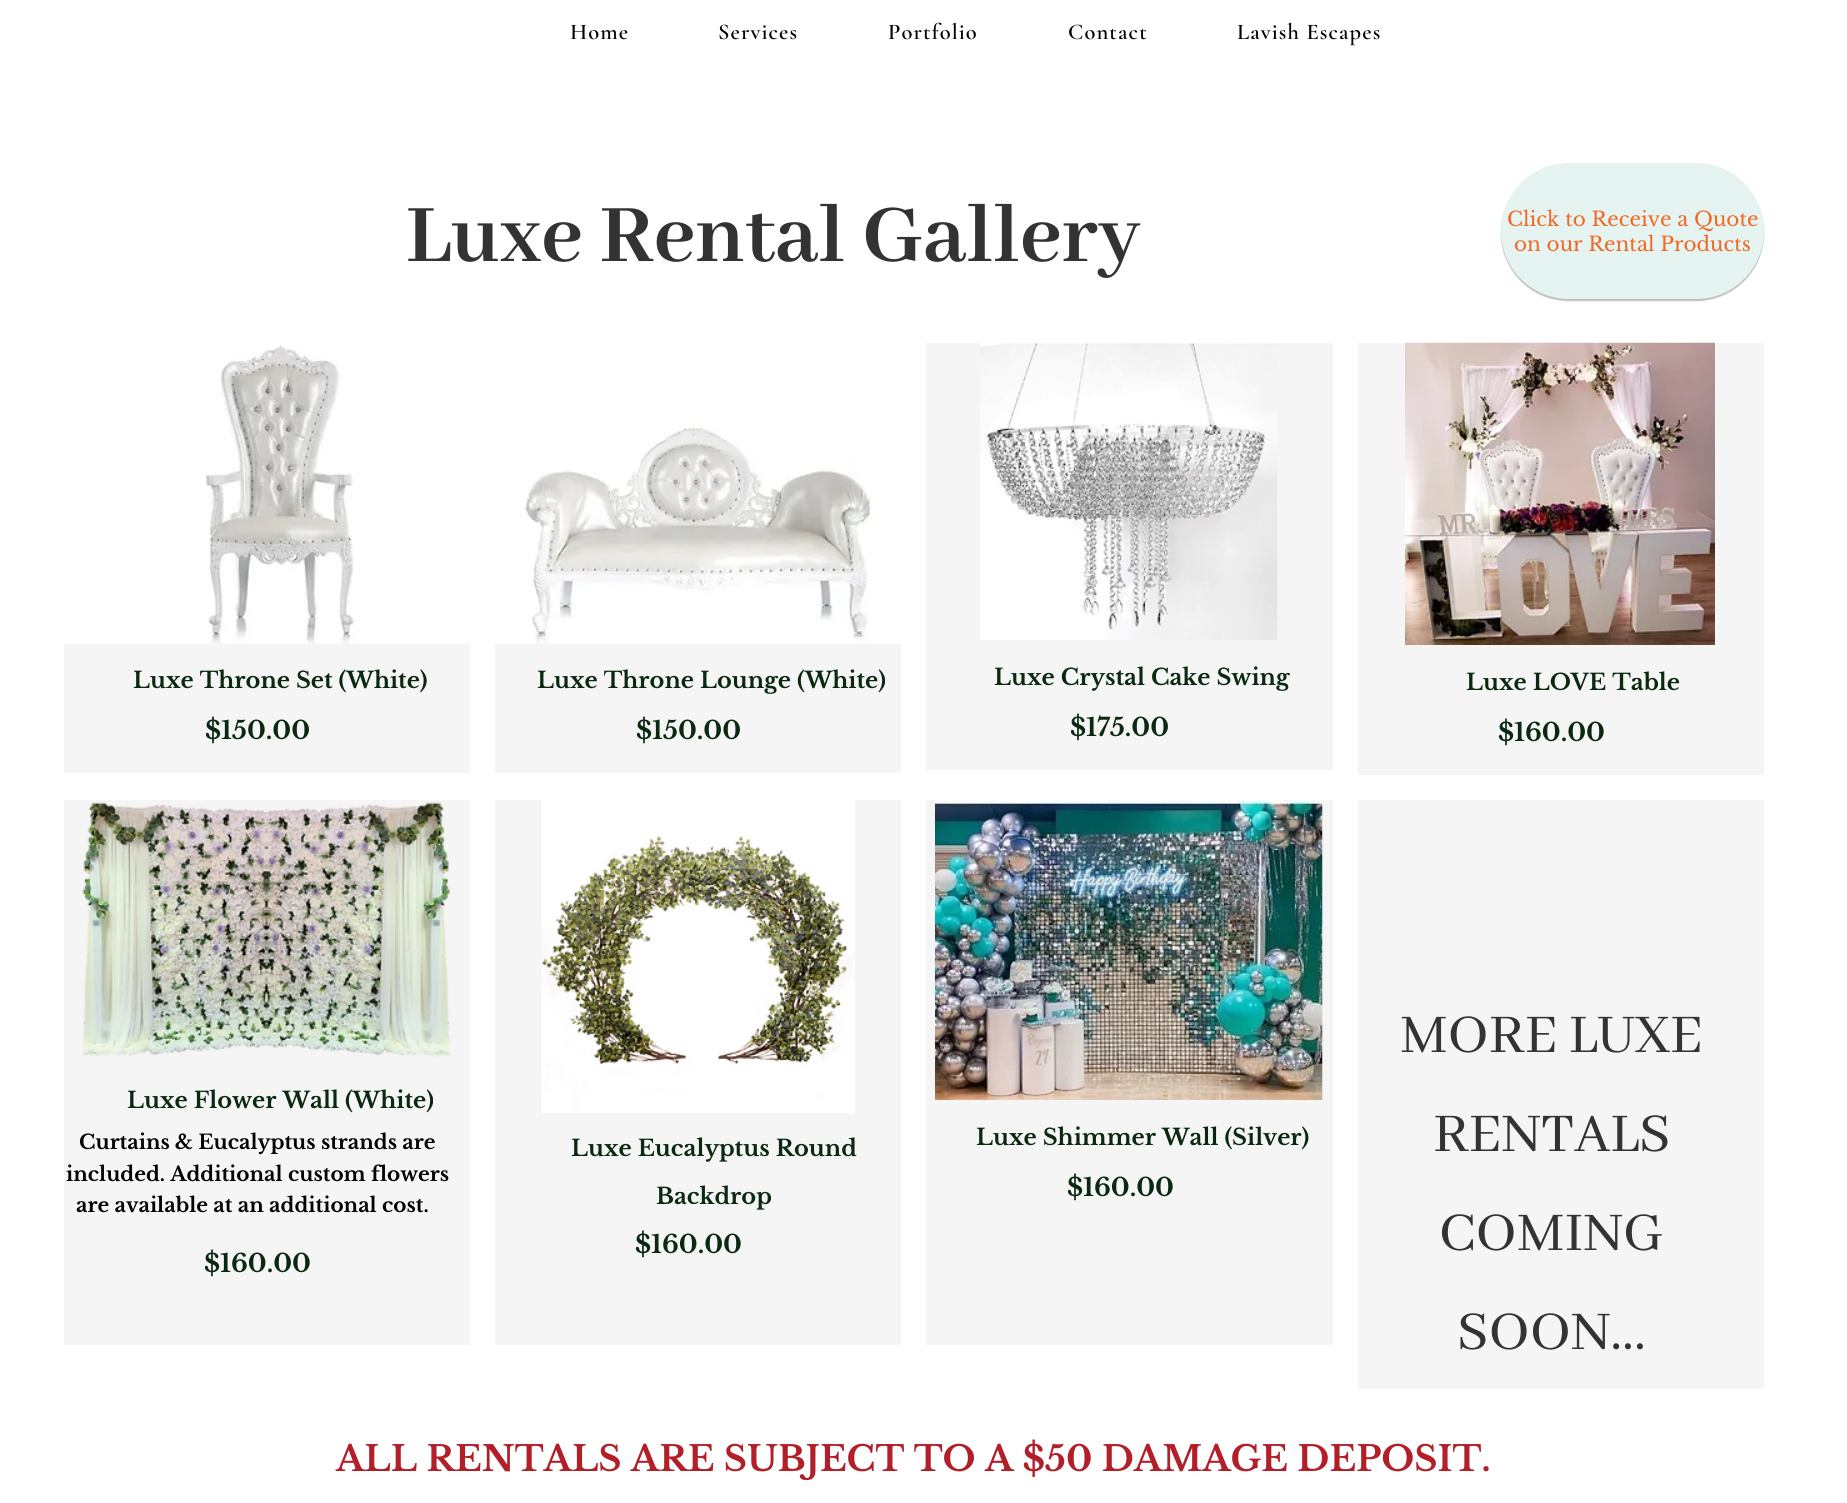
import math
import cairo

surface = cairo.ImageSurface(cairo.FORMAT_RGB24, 1847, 1503)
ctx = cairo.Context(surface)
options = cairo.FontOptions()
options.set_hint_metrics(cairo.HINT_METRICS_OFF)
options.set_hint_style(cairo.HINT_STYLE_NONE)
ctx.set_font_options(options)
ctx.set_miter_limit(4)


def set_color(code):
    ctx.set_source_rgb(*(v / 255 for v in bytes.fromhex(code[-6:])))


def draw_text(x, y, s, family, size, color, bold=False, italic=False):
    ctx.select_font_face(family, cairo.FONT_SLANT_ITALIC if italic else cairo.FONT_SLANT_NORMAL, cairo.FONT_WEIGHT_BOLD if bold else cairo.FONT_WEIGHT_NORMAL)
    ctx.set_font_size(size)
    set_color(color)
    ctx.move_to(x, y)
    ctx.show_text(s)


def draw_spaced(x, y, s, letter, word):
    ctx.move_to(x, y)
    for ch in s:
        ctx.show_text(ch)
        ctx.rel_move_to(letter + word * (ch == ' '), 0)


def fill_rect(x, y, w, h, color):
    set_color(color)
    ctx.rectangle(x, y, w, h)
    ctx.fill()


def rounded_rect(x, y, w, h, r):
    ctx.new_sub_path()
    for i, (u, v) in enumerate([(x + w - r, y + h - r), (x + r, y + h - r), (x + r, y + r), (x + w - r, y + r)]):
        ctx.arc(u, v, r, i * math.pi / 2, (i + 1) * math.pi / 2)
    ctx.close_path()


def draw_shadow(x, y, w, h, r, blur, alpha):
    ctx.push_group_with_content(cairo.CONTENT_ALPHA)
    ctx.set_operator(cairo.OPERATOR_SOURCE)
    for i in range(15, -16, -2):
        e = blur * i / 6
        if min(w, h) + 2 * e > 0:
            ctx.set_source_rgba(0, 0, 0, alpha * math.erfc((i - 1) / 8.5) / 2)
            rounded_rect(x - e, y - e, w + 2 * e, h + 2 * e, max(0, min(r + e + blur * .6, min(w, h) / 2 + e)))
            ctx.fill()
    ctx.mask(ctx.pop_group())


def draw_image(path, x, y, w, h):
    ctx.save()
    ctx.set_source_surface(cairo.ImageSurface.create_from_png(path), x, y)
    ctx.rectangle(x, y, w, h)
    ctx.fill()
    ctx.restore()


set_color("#ffffff")
ctx.paint()
ctx.select_font_face("Cormorant Garamond SemiBold")
ctx.set_font_size(22.5)
set_color("#000000")
draw_spaced(570, 39, "Home", 1.1, 0)
draw_spaced(718, 39, "Services", 1.1, 0)
draw_spaced(888, 39, "Portfolio", 1.1, 0)
draw_spaced(1068, 39, "Contact", 1.1, 0)
draw_spaced(1237, 39, "Lavish Escapes", 1.1, 0)
draw_text(406, 261, "Luxe Rental Gallery", "Abhaya Libre", 90, "#333333", bold=True)
set_color("#000000")
draw_shadow(1501, 165, 263, 136, 68, 0.5, 0.25)
set_color("#e5f4f1")
rounded_rect(1501, 163, 263, 136, 68)
ctx.fill()
draw_text(1507, 226, "Click to Receive a Quote", "Libre Baskerville", 20, "#f26722")
draw_text(1514, 251, "on our Rental Products", "Libre Baskerville", 20, "#f26722")
fill_rect(64, 643, 406, 130, "#f5f5f5")
draw_image("assets/img1.png", 64, 343, 406, 301)
draw_text(133, 688, "Luxe Throne Set (White)", "Libre Baskerville", 22.5, "#0a2910", bold=True)
draw_text(205, 739, "$150.00", "Libre Baskerville", 25, "#0a2910", bold=True)
fill_rect(495, 643, 406, 130, "#f5f5f5")
draw_image("assets/img2.png", 495, 343, 406, 301)
draw_text(537, 688, "Luxe Throne Lounge (White)", "Libre Baskerville", 22.5, "#0a2910", bold=True)
draw_text(636, 739, "$150.00", "Libre Baskerville", 25, "#0a2910", bold=True)
fill_rect(926, 343, 407, 427, "#f5f5f5")
draw_image("assets/img3.png", 980, 342, 298, 298)
draw_text(994, 685, "Luxe Crystal Cake Swing", "Libre Baskerville", 22.5, "#0a2910", bold=True)
draw_text(1070, 736, "$175.00", "Libre Baskerville", 25, "#0a2910", bold=True)
fill_rect(1358, 343, 406, 432, "#f5f5f5")
draw_image("assets/img4.png", 1405, 342, 310, 303)
draw_text(1466, 690, "Luxe LOVE Table", "Libre Baskerville", 22.5, "#0a2910", bold=True)
draw_text(1498, 741, "$160.00", "Libre Baskerville", 25, "#0a2910", bold=True)
fill_rect(64, 800, 406, 545, "#f5f5f5")
draw_image("assets/img5.png", 82, 802, 369, 255)
draw_text(127, 1108, "Luxe Flower Wall (White)", "Libre Baskerville", 22.5, "#0a2910", bold=True)
draw_text(79, 1149, "Curtains & Eucalyptus strands are", "Libre Baskerville", 20, "#000000", bold=True)
draw_text(66, 1181, "included. Additional custom flowers", "Libre Baskerville", 20, "#000000", bold=True)
draw_text(76, 1212, "are available at an additional cost.", "Libre Baskerville", 20, "#000000", bold=True)
draw_text(204, 1272, "$160.00", "Libre Baskerville", 25, "#0a2910", bold=True)
fill_rect(495, 800, 406, 545, "#f5f5f5")
draw_image("assets/img6.png", 541, 800, 314, 314)
draw_text(571, 1156, "Luxe Eucalyptus Round", "Libre Baskerville", 22.5, "#0a2910", bold=True)
draw_text(656, 1204, "Backdrop", "Libre Baskerville", 22.5, "#0a2910", bold=True)
draw_text(635, 1253, "$160.00", "Libre Baskerville", 25, "#0a2910", bold=True)
fill_rect(926, 800, 407, 545, "#f5f5f5")
draw_image("assets/img7.png", 935, 800, 388, 300)
draw_text(976, 1145, "Luxe Shimmer Wall (Silver)", "Libre Baskerville", 22.5, "#0a2910", bold=True)
draw_text(1067, 1196, "$160.00", "Libre Baskerville", 25, "#0a2910", bold=True)
fill_rect(1358, 800, 406, 589, "#f5f5f5")
draw_text(1400, 1052, "MORE LUXE", "Abhaya Libre", 60, "#333333")
draw_text(1433, 1151, "RENTALS", "Abhaya Libre", 60, "#333333")
draw_text(1439, 1250, "COMING", "Abhaya Libre", 60, "#333333")
draw_text(1457, 1349, "SOON...", "Abhaya Libre", 60, "#333333")
draw_text(336, 1471, "ALL RENTALS ARE SUBJECT TO A $50 DAMAGE DEPOSIT.", "Libre Baskerville", 35, "#b31f28", bold=True)
surface.write_to_png("output.png")
